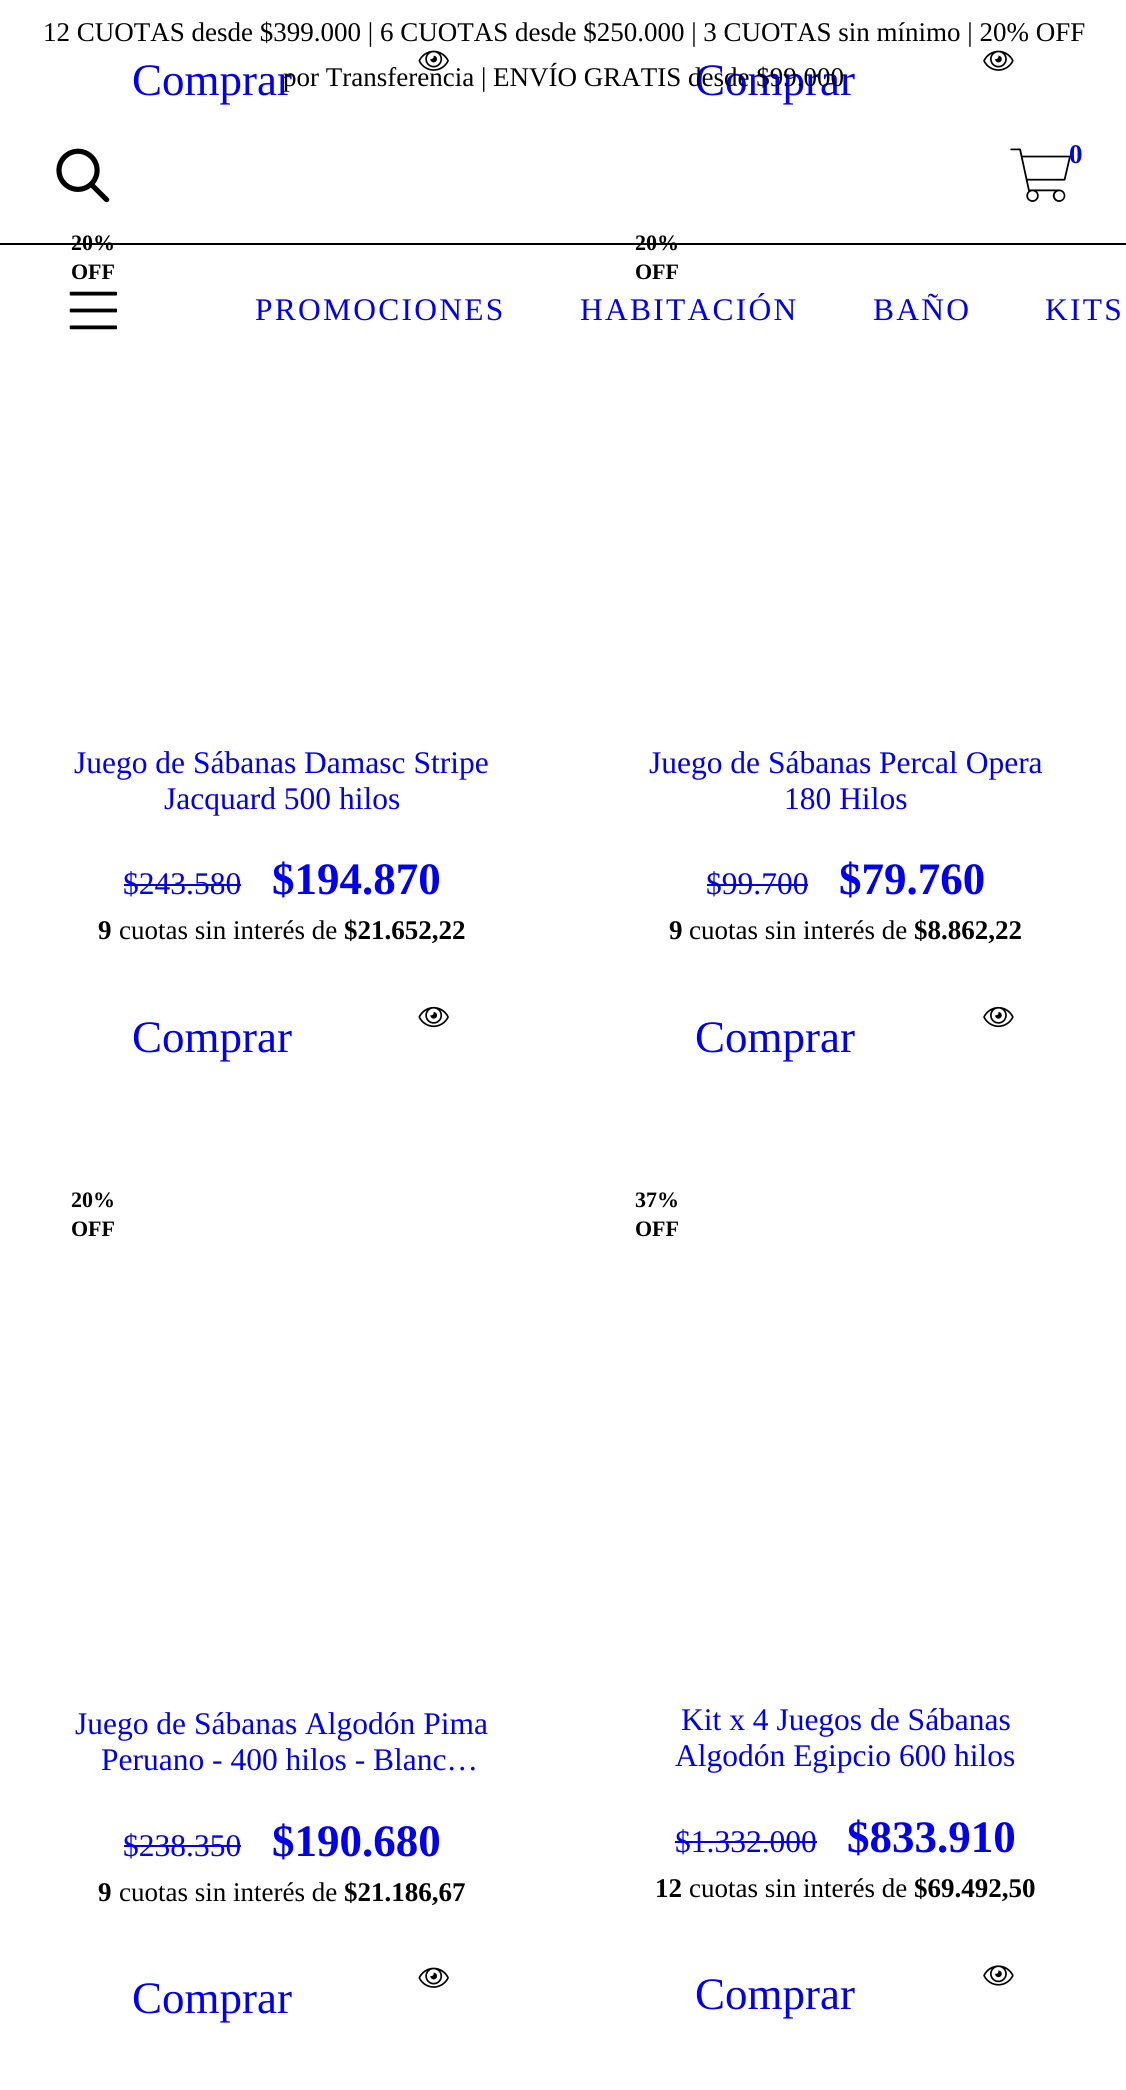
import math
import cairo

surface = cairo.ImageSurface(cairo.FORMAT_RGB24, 1126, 2090)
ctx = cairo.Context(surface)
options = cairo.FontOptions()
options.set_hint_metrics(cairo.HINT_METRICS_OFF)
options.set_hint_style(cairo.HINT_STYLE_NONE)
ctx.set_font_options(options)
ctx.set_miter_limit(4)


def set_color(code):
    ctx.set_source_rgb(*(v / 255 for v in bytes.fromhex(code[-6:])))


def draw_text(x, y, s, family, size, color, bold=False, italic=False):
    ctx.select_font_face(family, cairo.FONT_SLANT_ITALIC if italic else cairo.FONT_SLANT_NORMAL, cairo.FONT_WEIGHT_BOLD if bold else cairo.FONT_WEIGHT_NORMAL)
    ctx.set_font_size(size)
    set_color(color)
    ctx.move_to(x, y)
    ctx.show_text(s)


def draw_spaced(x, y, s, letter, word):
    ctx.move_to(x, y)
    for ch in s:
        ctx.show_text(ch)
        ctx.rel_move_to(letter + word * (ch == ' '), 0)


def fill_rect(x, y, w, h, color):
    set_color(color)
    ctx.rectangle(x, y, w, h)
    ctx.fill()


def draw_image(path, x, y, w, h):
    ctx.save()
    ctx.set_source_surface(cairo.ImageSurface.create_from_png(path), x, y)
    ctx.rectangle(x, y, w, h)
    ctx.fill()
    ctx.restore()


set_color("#ffffff")
ctx.paint()
draw_text(43, 41, "12 CUOTAS desde $399.000 | 6 CUOTAS desde $250.000 | 3 CUOTAS sin mínimo | 20% OFF", "Liberation Serif", 27, "#000000")
draw_image("assets/img4.png", 418, 50, 31, 21)
draw_text(132, 95, "Comprar", "Liberation Serif", 45, "#0000ee")
draw_text(695, 95, "Comprar", "Liberation Serif", 45, "#0000ee")
draw_text(283, 86, "por Transferencia | ENVÍO GRATIS desde $99.000", "Liberation Serif", 27, "#000000")
draw_image("assets/img1.png", 56, 148, 54, 55)
draw_image("assets/img2.png", 1010, 148, 61, 54)
draw_text(1069, 163, "0", "Liberation Serif", 27, "#0000ee", bold=True)
fill_rect(0, 243, 1126, 2, "#000000")
draw_image("assets/img3.png", 69, 291, 48, 39)
ctx.select_font_face("Liberation Serif")
ctx.set_font_size(31.5)
set_color("#0000ee")
draw_spaced(255, 320, "PROMOCIONES", 2.25, 0)
draw_spaced(580, 320, "HABITACIÓN", 2.25, 0)
draw_spaced(873, 320, "BAÑO", 2.25, 0)
draw_spaced(1045, 320, "KITS", 2.25, 0)
draw_image("assets/img5.png", 983, 50, 31, 21)
draw_text(71, 250, "20%", "Liberation Serif", 22, "#000000", bold=True)
draw_text(71, 279, "OFF", "Liberation Serif", 22, "#000000", bold=True)
draw_text(74, 773, "Juego de Sábanas Damasc Stripe", "Liberation Serif", 31.5, "#0000ee")
draw_text(164, 809, "Jacquard 500 hilos", "Liberation Serif", 31.5, "#0000ee")
draw_text(123, 894, "$243.580", "Liberation Serif", 31.5, "#0000ee")
fill_rect(124, 884, 117, 2, "#0000ee")
draw_text(272, 894, "$194.870", "Liberation Serif", 45, "#0000ee", bold=True)
draw_text(98, 939, "9", "Liberation Serif", 27, "#000000", bold=True)
draw_text(119, 939, "cuotas sin interés de", "Liberation Serif", 27, "#000000")
draw_text(344, 939, "$21.652,22", "Liberation Serif", 27, "#000000", bold=True)
draw_image("assets/img6.png", 418, 1006, 31, 22)
draw_text(132, 1052, "Comprar", "Liberation Serif", 45, "#0000ee")
draw_text(635, 250, "20%", "Liberation Serif", 22, "#000000", bold=True)
draw_text(635, 279, "OFF", "Liberation Serif", 22, "#000000", bold=True)
draw_text(649, 773, "Juego de Sábanas Percal Opera", "Liberation Serif", 31.5, "#0000ee")
draw_text(784, 809, "180 Hilos", "Liberation Serif", 31.5, "#0000ee")
draw_text(706, 894, "$99.700", "Liberation Serif", 31.5, "#0000ee")
fill_rect(707, 884, 101, 2, "#0000ee")
draw_text(839, 894, "$79.760", "Liberation Serif", 45, "#0000ee", bold=True)
draw_text(669, 939, "9", "Liberation Serif", 27, "#000000", bold=True)
draw_text(689, 939, "cuotas sin interés de", "Liberation Serif", 27, "#000000")
draw_text(914, 939, "$8.862,22", "Liberation Serif", 27, "#000000", bold=True)
draw_image("assets/img7.png", 983, 1006, 31, 22)
draw_text(695, 1052, "Comprar", "Liberation Serif", 45, "#0000ee")
draw_text(71, 1207, "20%", "Liberation Serif", 22, "#000000", bold=True)
draw_text(71, 1236, "OFF", "Liberation Serif", 22, "#000000", bold=True)
draw_text(75, 1734, "Juego de Sábanas Algodón Pima", "Liberation Serif", 31.5, "#0000ee")
draw_text(101, 1770, "Peruano - 400 hilos - Blanc…", "Liberation Serif", 31.5, "#0000ee")
draw_text(123, 1856, "$238.350", "Liberation Serif", 31.5, "#0000ee")
fill_rect(124, 1845, 117, 2, "#0000ee")
draw_text(272, 1856, "$190.680", "Liberation Serif", 45, "#0000ee", bold=True)
draw_text(98, 1901, "9", "Liberation Serif", 27, "#000000", bold=True)
draw_text(119, 1901, "cuotas sin interés de", "Liberation Serif", 27, "#000000")
draw_text(344, 1901, "$21.186,67", "Liberation Serif", 27, "#000000", bold=True)
draw_image("assets/img4.png", 418, 1967, 31, 21)
draw_text(132, 2013, "Comprar", "Liberation Serif", 45, "#0000ee")
draw_text(635, 1207, "37%", "Liberation Serif", 22, "#000000", bold=True)
draw_text(635, 1236, "OFF", "Liberation Serif", 22, "#000000", bold=True)
draw_text(681, 1730, "Kit x 4 Juegos de Sábanas", "Liberation Serif", 31.5, "#0000ee")
draw_text(675, 1766, "Algodón Egipcio 600 hilos", "Liberation Serif", 31.5, "#0000ee")
draw_text(675, 1852, "$1.332.000", "Liberation Serif", 31.5, "#0000ee")
fill_rect(675, 1841, 142, 2, "#0000ee")
draw_text(847, 1852, "$833.910", "Liberation Serif", 45, "#0000ee", bold=True)
draw_text(655, 1897, "12", "Liberation Serif", 27, "#000000", bold=True)
draw_text(689, 1897, "cuotas sin interés de", "Liberation Serif", 27, "#000000")
draw_text(914, 1897, "$69.492,50", "Liberation Serif", 27, "#000000", bold=True)
draw_image("assets/img8.png", 983, 1965, 31, 21)
draw_text(695, 2009, "Comprar", "Liberation Serif", 45, "#0000ee")
surface.write_to_png("output.png")
